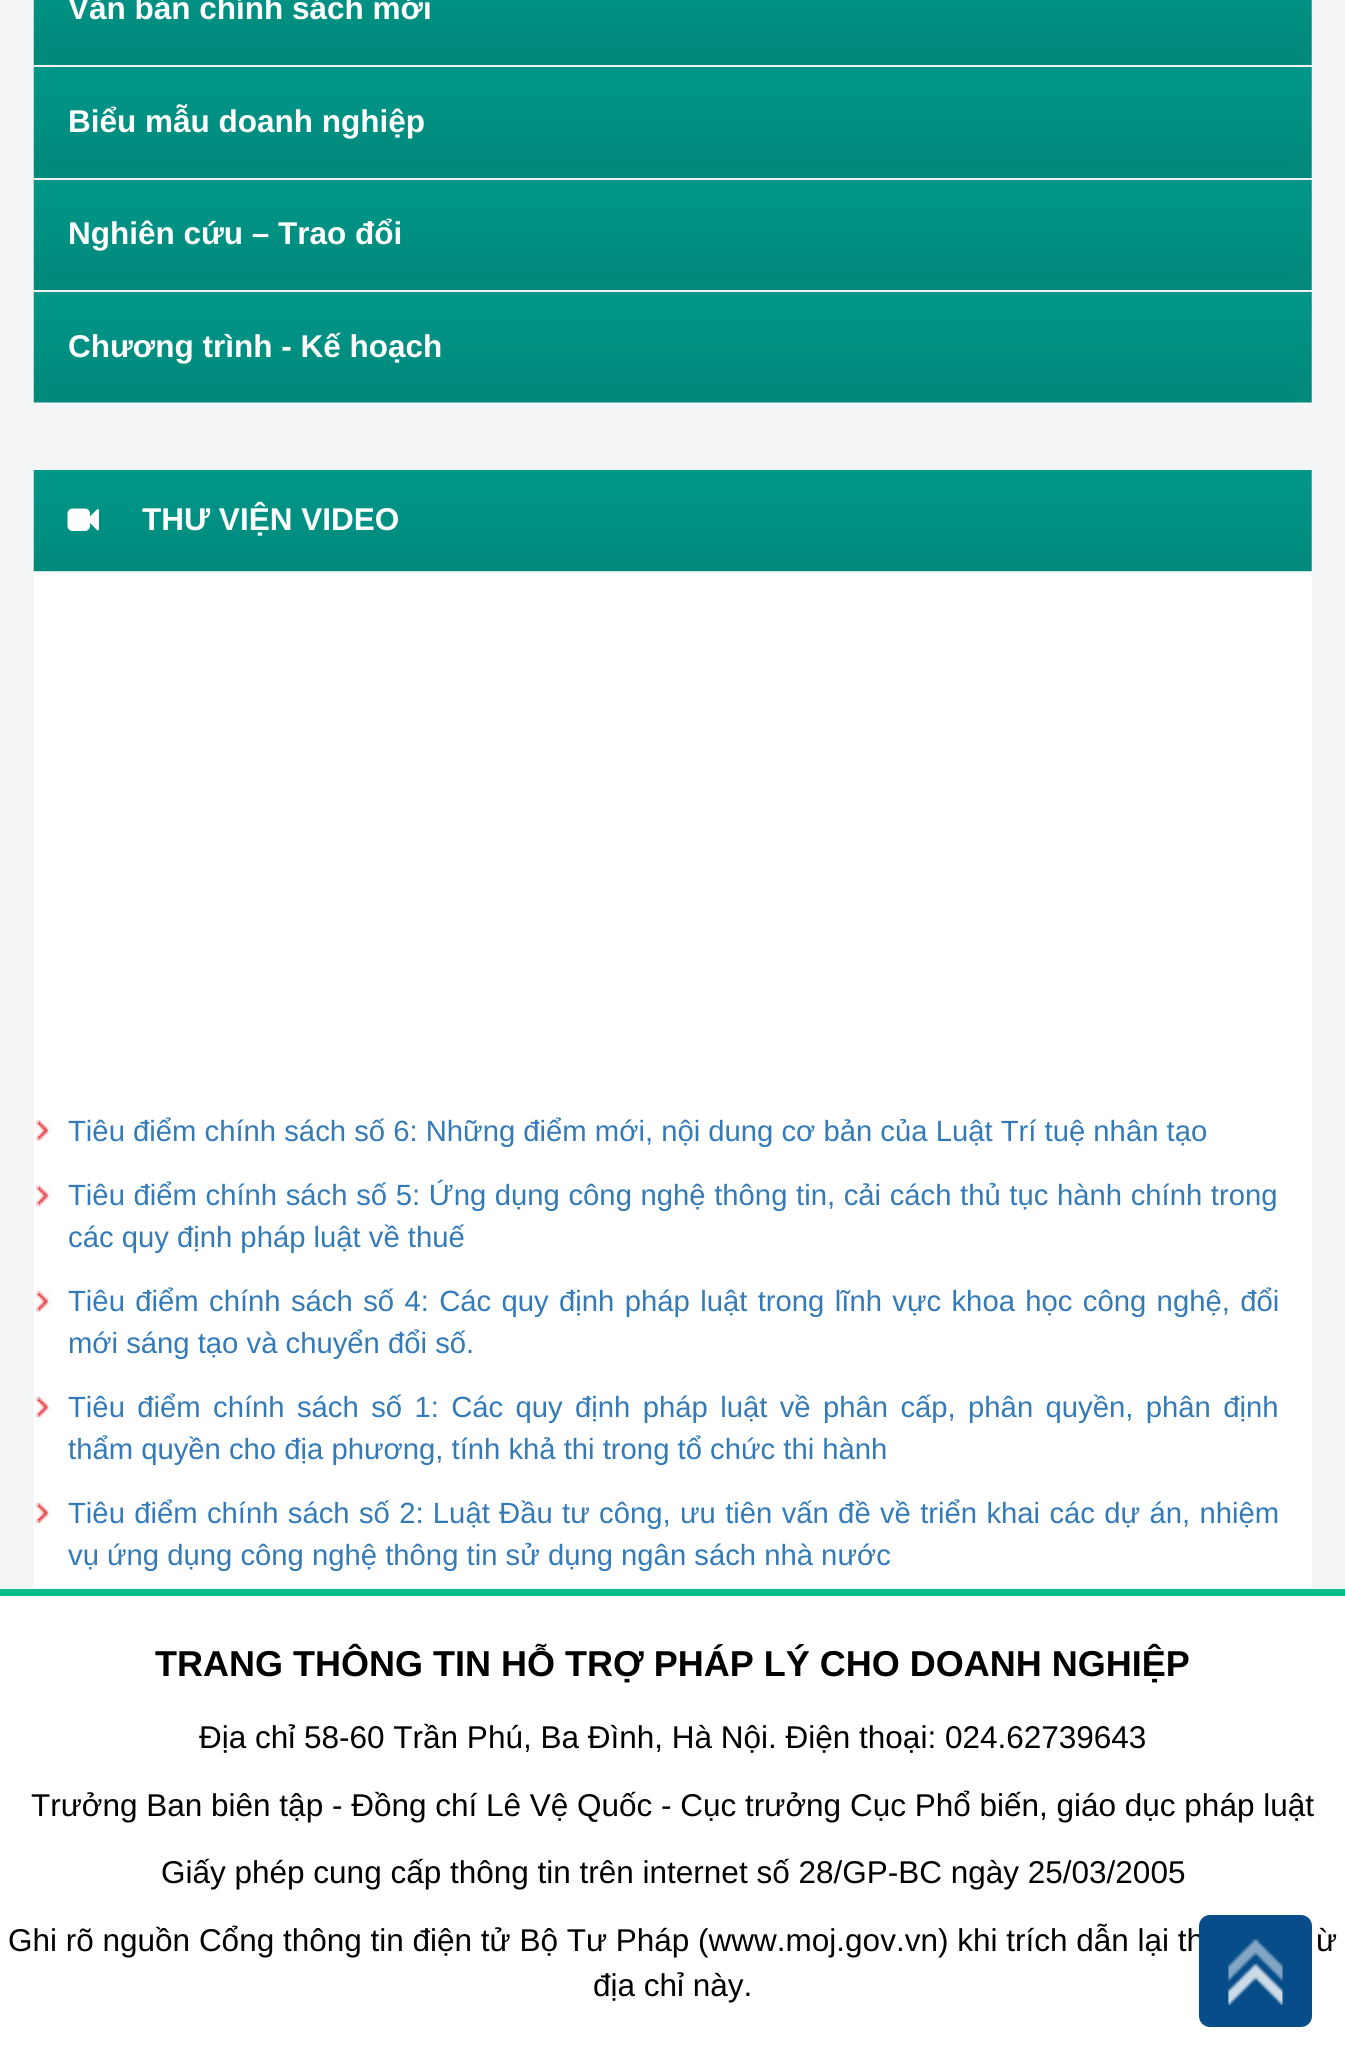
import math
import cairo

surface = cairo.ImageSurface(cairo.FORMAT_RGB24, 1345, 2061)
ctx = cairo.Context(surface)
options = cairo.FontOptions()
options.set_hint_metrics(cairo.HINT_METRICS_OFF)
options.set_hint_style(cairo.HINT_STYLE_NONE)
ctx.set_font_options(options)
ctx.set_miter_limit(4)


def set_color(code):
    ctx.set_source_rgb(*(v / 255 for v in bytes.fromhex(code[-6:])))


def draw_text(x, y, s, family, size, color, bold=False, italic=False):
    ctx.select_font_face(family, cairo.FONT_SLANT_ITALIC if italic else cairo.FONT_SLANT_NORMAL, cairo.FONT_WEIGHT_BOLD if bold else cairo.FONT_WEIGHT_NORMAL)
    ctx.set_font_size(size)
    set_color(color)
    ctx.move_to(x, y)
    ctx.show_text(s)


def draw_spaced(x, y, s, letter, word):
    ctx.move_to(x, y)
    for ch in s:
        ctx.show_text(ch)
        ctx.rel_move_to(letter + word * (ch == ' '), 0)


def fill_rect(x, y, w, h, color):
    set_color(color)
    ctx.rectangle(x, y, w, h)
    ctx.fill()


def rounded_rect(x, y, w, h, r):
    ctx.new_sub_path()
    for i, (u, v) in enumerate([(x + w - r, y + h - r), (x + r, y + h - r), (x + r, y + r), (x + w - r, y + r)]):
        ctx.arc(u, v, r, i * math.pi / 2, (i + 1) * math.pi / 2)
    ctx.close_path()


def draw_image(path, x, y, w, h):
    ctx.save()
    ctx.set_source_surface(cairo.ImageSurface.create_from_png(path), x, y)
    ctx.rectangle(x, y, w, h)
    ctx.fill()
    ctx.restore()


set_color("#ffffff")
ctx.paint()
fill_rect(0, 0, 1345, 1588, "#f4f5f7")
draw_image("assets/img1.png", 33, 0, 1279, 403)
draw_text(68, 19, "Văn bản chính sách mới", "Liberation Sans", 31.5, "#ffffff", bold=True)
fill_rect(34, 65, 1278, 2, "#f5eeee")
draw_text(68, 132, "Biểu mẫu doanh nghiệp", "Liberation Sans", 31.5, "#ffffff", bold=True)
fill_rect(34, 178, 1278, 2, "#f5eeee")
draw_text(68, 244, "Nghiên cứu – Trao đổi", "Liberation Sans", 31.5, "#ffffff", bold=True)
fill_rect(34, 290, 1278, 2, "#f5eeee")
draw_text(68, 357, "Chương trình - Kế hoạch", "Liberation Sans", 31.5, "#ffffff", bold=True)
fill_rect(34, 470, 1278, 1118, "#ffffff")
draw_image("assets/img2.png", 33, 470, 1279, 102)
draw_image("assets/img3.png", 67, 508, 32, 23)
draw_text(142, 530, "THƯ VIỆN VIDEO", "Liberation Sans", 31.5, "#ffffff", bold=True)
draw_image("assets/img4.png", 36, 1120, 16, 21)
draw_text(68, 1141, "Tiêu điểm chính sách số 6: Những điểm mới, nội dung cơ bản của Luật Trí tuệ nhân tạo", "Liberation Sans", 29.25, "#337ab7")
draw_image("assets/img5.png", 36, 1185, 16, 21)
draw_spaced(68, 1205, "Tiêu điểm chính sách số 5: Ứng dụng công nghệ thông tin, cải cách thủ tục hành chính trong", 0, 0.5)
draw_text(68, 1247, "các quy định pháp luật về thuế", "Liberation Sans", 29.25, "#337ab7")
draw_image("assets/img4.png", 36, 1291, 16, 21)
draw_spaced(68, 1311, "Tiêu điểm chính sách số 4: Các quy định pháp luật trong lĩnh vực khoa học công nghệ, đổi", 0, 2.25)
draw_text(68, 1353, "mới sáng tạo và chuyển đổi số.", "Liberation Sans", 29.25, "#337ab7")
draw_image("assets/img6.png", 36, 1397, 16, 21)
draw_spaced(68, 1417, "Tiêu điểm chính sách số 1: Các quy định pháp luật về phân cấp, phân quyền, phân định", 0, 4.25)
draw_text(68, 1459, "thẩm quyền cho địa phương, tính khả thi trong tổ chức thi hành", "Liberation Sans", 29.25, "#337ab7")
draw_image("assets/img7.png", 36, 1502, 16, 21)
draw_spaced(68, 1523, "Tiêu điểm chính sách số 2: Luật Đầu tư công, ưu tiên vấn đề về triển khai các dự án, nhiệm", 0, 1.2)
draw_text(68, 1565, "vụ ứng dụng công nghệ thông tin sử dụng ngân sách nhà nước", "Liberation Sans", 29.25, "#337ab7")
fill_rect(0, 1589, 1345, 7, "#04bb89")
draw_text(155, 1676, "TRANG THÔNG TIN HỖ TRỢ PHÁP LÝ CHO DOANH NGHIỆP", "Liberation Sans", 36, "#000000", bold=True)
draw_text(199, 1748, "Địa chỉ 58-60 Trần Phú, Ba Đình, Hà Nội. Điện thoại: 024.62739643", "Liberation Sans", 31.5, "#000000")
draw_text(31, 1816, "Trưởng Ban biên tập - Đồng chí Lê Vệ Quốc - Cục trưởng Cục Phổ biến, giáo dục pháp luật", "Liberation Sans", 31.5, "#000000")
draw_text(161, 1883, "Giấy phép cung cấp thông tin trên internet số 28/GP-BC ngày 25/03/2005", "Liberation Sans", 31.5, "#000000")
draw_text(8, 1951, "Ghi rõ nguồn Cổng thông tin điện tử Bộ Tư Pháp (www.moj.gov.vn) khi trích dẫn lại th", "Liberation Sans", 31.5, "#000000")
draw_text(1316, 1951, "ừ", "Liberation Sans", 31.5, "#000000")
draw_text(593, 1996, "địa chỉ này.", "Liberation Sans", 31.5, "#000000")
set_color("#074d89")
rounded_rect(1199, 1915, 113, 112, 11)
ctx.fill()
draw_image("assets/img8.png", 1228, 1939, 56, 66)
surface.write_to_png("output.png")
